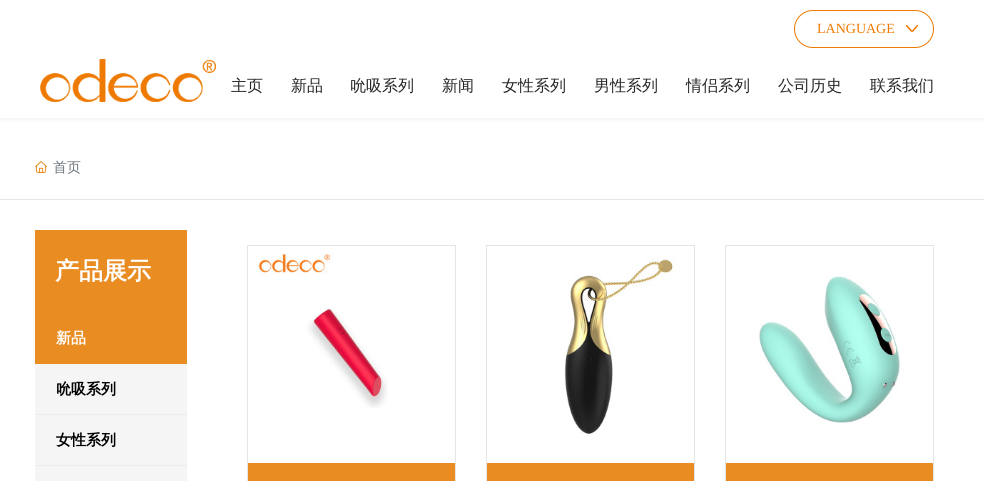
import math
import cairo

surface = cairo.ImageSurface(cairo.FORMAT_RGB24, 984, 481)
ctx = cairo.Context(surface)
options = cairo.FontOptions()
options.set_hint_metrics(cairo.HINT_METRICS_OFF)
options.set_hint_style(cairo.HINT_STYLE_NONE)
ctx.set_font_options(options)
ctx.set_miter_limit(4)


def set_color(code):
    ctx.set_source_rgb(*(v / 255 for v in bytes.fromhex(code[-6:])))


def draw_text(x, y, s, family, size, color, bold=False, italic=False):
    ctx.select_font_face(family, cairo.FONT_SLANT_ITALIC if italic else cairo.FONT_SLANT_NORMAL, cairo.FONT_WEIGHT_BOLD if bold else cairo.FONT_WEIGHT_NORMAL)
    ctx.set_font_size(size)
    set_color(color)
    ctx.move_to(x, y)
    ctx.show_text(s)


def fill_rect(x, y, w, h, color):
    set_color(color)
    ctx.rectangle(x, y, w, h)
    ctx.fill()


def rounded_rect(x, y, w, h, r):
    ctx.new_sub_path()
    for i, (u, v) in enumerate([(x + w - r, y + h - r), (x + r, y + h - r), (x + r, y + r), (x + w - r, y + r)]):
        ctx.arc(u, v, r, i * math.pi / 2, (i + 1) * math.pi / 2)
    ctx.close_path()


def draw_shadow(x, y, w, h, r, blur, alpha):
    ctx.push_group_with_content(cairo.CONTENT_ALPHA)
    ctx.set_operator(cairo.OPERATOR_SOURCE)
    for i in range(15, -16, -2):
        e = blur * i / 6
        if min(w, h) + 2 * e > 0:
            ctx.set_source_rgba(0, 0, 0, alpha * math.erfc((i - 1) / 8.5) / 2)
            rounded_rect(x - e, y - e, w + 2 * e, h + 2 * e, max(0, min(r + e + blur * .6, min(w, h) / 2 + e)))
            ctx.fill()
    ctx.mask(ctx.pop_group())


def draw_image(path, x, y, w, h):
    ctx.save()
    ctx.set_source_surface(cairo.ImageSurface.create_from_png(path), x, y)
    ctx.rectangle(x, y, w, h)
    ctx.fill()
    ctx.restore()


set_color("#ffffff")
ctx.paint()
set_color("#000000")
draw_shadow(0, 0, 984, 118, 0, 2.5, 0.1)
fill_rect(0, 0, 984, 118, "#ffffff")
rounded_rect(794.5, 10.5, 139, 37, 18.5)
set_color("#ee7a02")
ctx.set_line_width(1)
ctx.stroke()
draw_text(817, 33, "LANGUAGE", "Liberation Serif", 14, "#ee7a02")
draw_image("assets/img1.png", 905, 24, 14, 8)
draw_image("assets/img2.png", 40, 59, 176, 43)
draw_text(231, 91, "主页", "WenQuanYi Zen Hei Medium", 16, "#262626")
draw_text(291, 91, "新品", "WenQuanYi Zen Hei Medium", 16, "#262626")
draw_text(350, 91, "吮吸系列", "WenQuanYi Zen Hei Medium", 16, "#262626")
draw_text(442, 91, "新闻", "WenQuanYi Zen Hei Medium", 16, "#262626")
draw_text(502, 91, "女性系列", "WenQuanYi Zen Hei Medium", 16, "#262626")
draw_text(594, 91, "男性系列", "WenQuanYi Zen Hei Medium", 16, "#262626")
draw_text(686, 91, "情侣系列", "WenQuanYi Zen Hei Medium", 16, "#262626")
draw_text(778, 91, "公司历史", "WenQuanYi Zen Hei Medium", 16, "#262626")
draw_text(870, 91, "联系我们", "WenQuanYi Zen Hei Medium", 16, "#262626")
fill_rect(0, 199, 984, 1, "#e6e6e6")
draw_image("assets/img3.png", 35, 161, 12, 12)
draw_text(53, 172, "首页", "WenQuanYi Zen Hei Medium", 14, "#6c757d")
fill_rect(35, 230, 152, 134, "#e98d23")
draw_text(55, 279, "产品展示", "WenQuanYi Zen Hei", 24, "#ffffff", bold=True)
draw_text(56, 343, "新品", "WenQuanYi Zen Hei", 15, "#ffffff", bold=True)
fill_rect(35, 364, 152, 50, "#f5f5f5")
fill_rect(35, 414, 152, 1, "#ebebeb")
draw_text(56, 394, "吮吸系列", "WenQuanYi Zen Hei", 15, "#000000", bold=True)
fill_rect(35, 415, 152, 50, "#f5f5f5")
fill_rect(35, 465, 152, 1, "#ebebeb")
draw_text(56, 445, "女性系列", "WenQuanYi Zen Hei", 15, "#000000", bold=True)
fill_rect(35, 466, 152, 15, "#f5f5f5")
ctx.rectangle(247.5, 245.5, 208, 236)
set_color("#e5e5e5")
ctx.stroke()
draw_image("assets/img4.png", 255, 252, 133, 156)
fill_rect(248, 463, 207, 18, "#e98d23")
ctx.rectangle(486.5, 245.5, 208, 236)
set_color("#e5e5e5")
ctx.stroke()
draw_image("assets/img5.png", 564, 258, 111, 176)
fill_rect(487, 463, 207, 18, "#e98d23")
ctx.rectangle(725.5, 245.5, 208, 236)
set_color("#e5e5e5")
ctx.stroke()
draw_image("assets/img6.png", 759, 276, 142, 147)
fill_rect(726, 463, 207, 18, "#e98d23")
surface.write_to_png("output.png")
